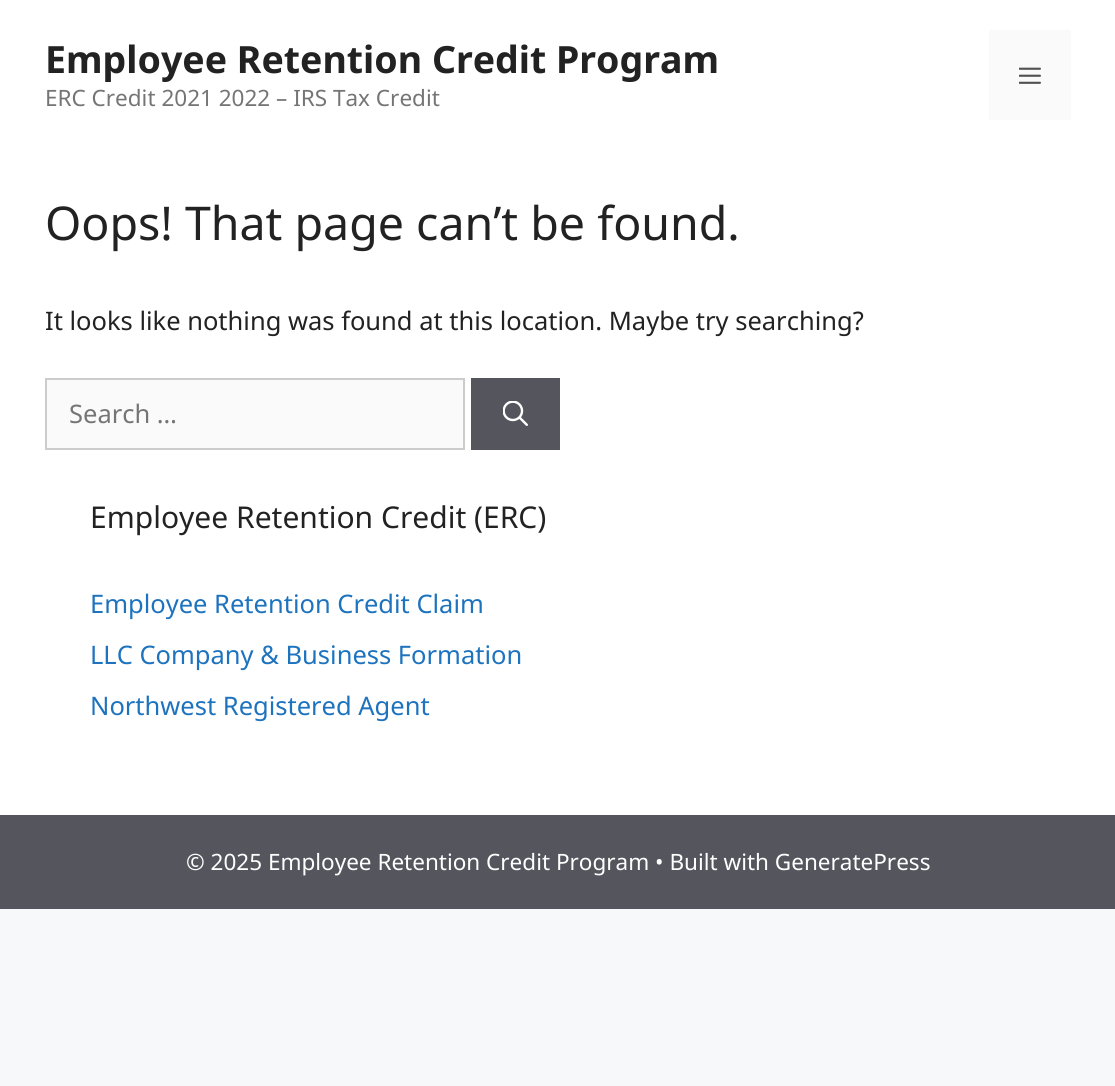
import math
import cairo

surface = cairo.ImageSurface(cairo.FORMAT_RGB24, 1115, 1086)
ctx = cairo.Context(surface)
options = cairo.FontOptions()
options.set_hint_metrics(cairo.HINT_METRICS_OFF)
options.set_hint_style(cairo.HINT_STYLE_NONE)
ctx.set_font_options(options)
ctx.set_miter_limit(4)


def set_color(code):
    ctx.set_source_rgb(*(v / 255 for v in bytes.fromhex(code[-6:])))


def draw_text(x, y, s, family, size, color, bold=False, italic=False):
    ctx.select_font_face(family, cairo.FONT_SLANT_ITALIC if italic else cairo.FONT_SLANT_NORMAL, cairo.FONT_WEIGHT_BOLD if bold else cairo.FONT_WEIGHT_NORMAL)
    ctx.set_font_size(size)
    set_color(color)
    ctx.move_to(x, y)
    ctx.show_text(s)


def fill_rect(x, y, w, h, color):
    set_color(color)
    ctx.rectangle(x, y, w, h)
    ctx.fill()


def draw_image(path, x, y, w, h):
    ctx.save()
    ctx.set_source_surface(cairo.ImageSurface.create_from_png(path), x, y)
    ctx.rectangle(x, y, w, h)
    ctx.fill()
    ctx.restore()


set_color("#f7f8f9")
ctx.paint()
fill_rect(0, 0, 1115, 815, "#ffffff")
draw_text(45, 73, "Employee Retention Credit Program", "Noto Sans", 37.5, "#222222", bold=True)
draw_text(45, 106, "ERC Credit 2021 2022 – IRS Tax Credit", "Noto Sans", 22.5, "#757575")
fill_rect(989, 30, 82, 90, "#fafafa")
draw_image("assets/img1.png", 1019, 67, 22, 17)
draw_text(45, 240, "Oops! That page can’t be found.", "Noto Sans", 46.5, "#222222")
draw_text(45, 330, "It looks like nothing was found at this location. Maybe try searching?", "Noto Sans", 25.5, "#222222")
set_color("#fafafa")
ctx.rectangle(46, 379, 418, 70)
ctx.fill_preserve()
set_color("#cccccc")
ctx.stroke()
draw_text(69, 423, "Search …", "Noto Sans", 25.5, "#757575")
fill_rect(471, 378, 89, 72, "#55555e")
draw_image("assets/img2.png", 503, 401, 25, 25)
draw_text(90, 528, "Employee Retention Credit (ERC)", "Noto Sans", 30, "#222222")
draw_text(90, 613, "Employee Retention Credit Claim", "Noto Sans", 25.5, "#1e73be")
draw_text(90, 664, "LLC Company & Business Formation", "Noto Sans", 25.5, "#1e73be")
draw_text(90, 715, "Northwest Registered Agent", "Noto Sans", 25.5, "#1e73be")
fill_rect(0, 815, 1115, 94, "#55555e")
draw_text(186, 870, "© 2025 Employee Retention Credit Program • Built with GeneratePress", "Noto Sans", 22.5, "#ffffff")
surface.write_to_png("output.png")
